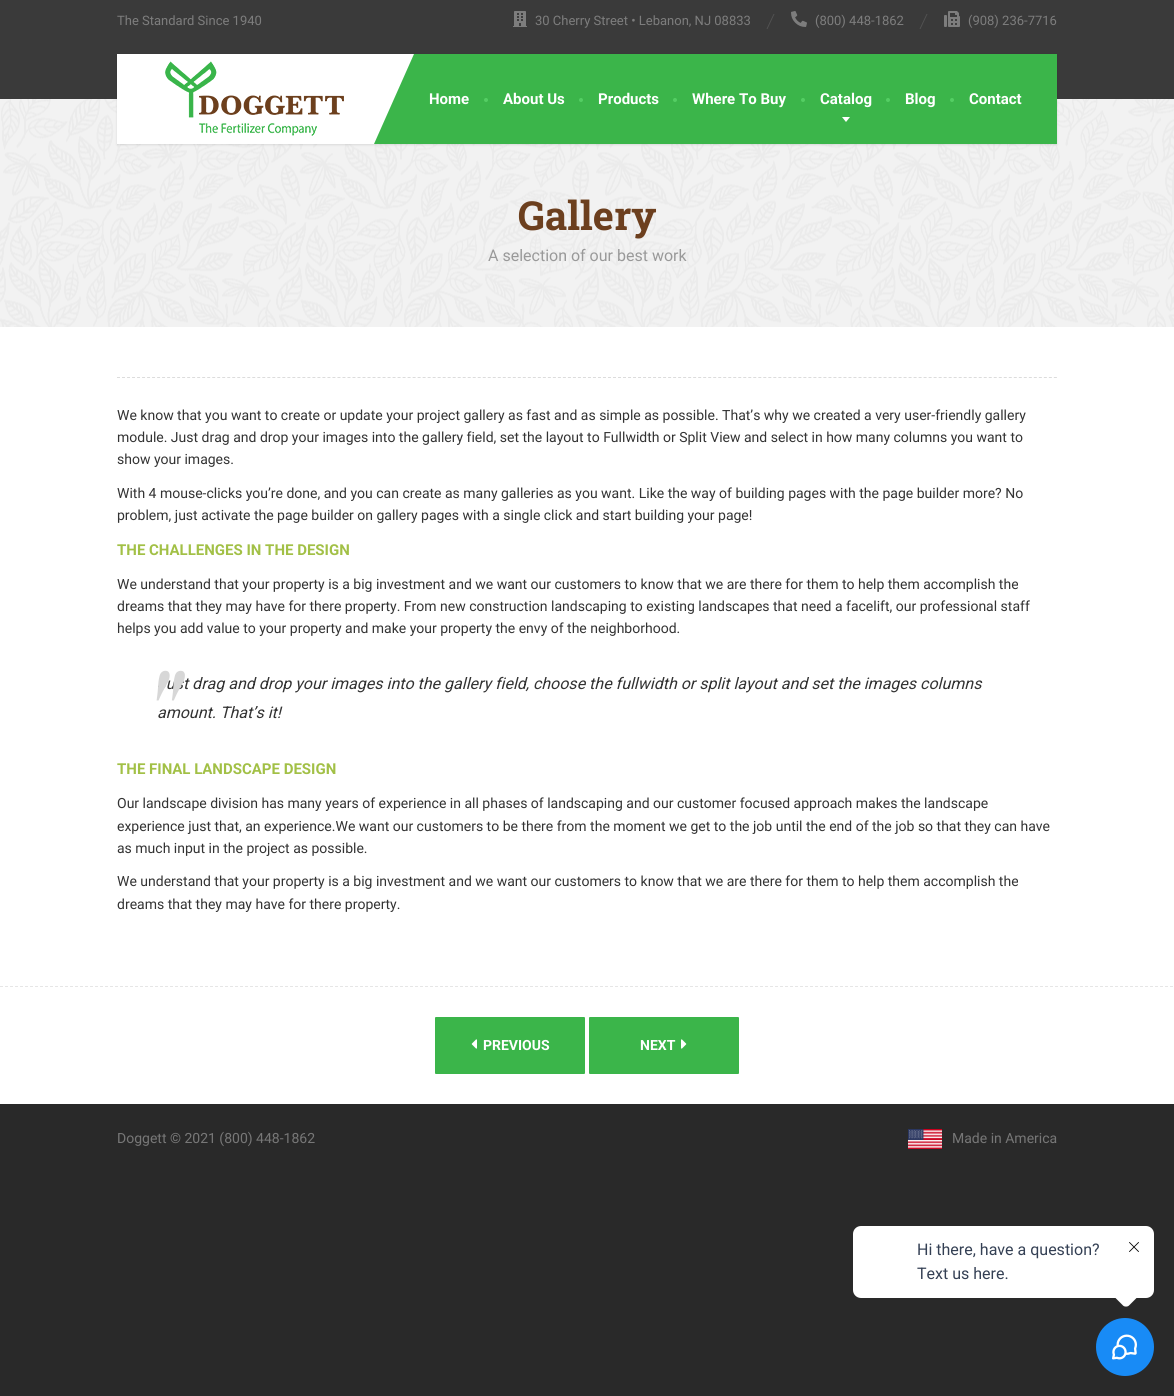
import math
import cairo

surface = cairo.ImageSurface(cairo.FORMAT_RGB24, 1174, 1396)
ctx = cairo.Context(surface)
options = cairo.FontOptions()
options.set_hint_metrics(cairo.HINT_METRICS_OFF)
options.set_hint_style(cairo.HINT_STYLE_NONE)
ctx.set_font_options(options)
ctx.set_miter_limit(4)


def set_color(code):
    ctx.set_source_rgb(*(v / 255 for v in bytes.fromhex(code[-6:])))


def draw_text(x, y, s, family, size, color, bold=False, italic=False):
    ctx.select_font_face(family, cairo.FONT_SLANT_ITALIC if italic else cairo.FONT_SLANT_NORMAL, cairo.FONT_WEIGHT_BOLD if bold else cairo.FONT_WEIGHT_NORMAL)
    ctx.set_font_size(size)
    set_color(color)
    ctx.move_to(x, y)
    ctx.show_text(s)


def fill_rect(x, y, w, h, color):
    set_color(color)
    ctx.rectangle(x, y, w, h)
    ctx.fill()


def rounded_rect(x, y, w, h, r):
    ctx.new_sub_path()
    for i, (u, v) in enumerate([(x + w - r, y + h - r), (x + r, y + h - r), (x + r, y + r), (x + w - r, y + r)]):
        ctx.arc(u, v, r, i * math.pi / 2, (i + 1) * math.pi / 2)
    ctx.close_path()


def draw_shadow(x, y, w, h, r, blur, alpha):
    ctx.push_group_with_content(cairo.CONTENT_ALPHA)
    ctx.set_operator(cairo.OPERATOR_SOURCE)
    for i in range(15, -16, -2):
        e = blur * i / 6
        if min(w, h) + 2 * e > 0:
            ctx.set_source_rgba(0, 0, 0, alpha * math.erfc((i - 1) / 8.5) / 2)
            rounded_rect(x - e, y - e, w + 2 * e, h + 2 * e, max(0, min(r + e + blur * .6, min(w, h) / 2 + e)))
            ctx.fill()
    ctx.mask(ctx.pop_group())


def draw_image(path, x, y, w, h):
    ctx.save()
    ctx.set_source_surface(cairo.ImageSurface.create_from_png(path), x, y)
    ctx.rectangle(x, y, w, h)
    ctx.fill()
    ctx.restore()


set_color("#292929")
ctx.paint()
fill_rect(0, 327, 1174, 777, "#ffffff")
fill_rect(0, 0, 1174, 99, "#3a3a3a")
draw_text(117, 25, "The Standard Since 1940", "Roboto", 13, "#7d7d7d")
draw_image("assets/img1.png", 513, 11, 14, 16)
draw_text(535, 25, "30 Cherry Street • Lebanon, NJ 08833", "Roboto", 13, "#7d7d7d")
set_color("#525252")
ctx.new_path()
ctx.move_to(773.5, 14)
ctx.line_to(774.5, 14)
ctx.line_to(767.5, 29)
ctx.line_to(766.5, 29)
ctx.close_path()
ctx.fill()
draw_image("assets/img2.png", 791, 11, 16, 16)
draw_text(815, 25, "(800) 448-1862", "Roboto", 13, "#7d7d7d")
set_color("#525252")
ctx.new_path()
ctx.move_to(926.5, 14)
ctx.line_to(927.5, 14)
ctx.line_to(920.5, 29)
ctx.line_to(919.5, 29)
ctx.close_path()
ctx.fill()
draw_image("assets/img3.png", 944, 11, 16, 16)
draw_text(968, 25, "(908) 236-7716", "Roboto", 13, "#7d7d7d")
draw_image("assets/img5.png", 0, 99, 1174, 228)
set_color("#000000")
draw_shadow(117, 55, 940, 90, 0, 1, 0.1)
fill_rect(117, 54, 257, 90, "#ffffff")
draw_image("assets/img4.png", 165, 61, 179, 75)
fill_rect(374, 54, 683, 90, "#3bb54a")
set_color("#ffffff")
ctx.new_path()
ctx.move_to(374, 144)
ctx.line_to(374, 54)
ctx.line_to(414, 54)
ctx.close_path()
ctx.fill()
draw_text(429, 104, "Home", "Roboto", 15, "#ffffff", bold=True)
set_color("#54ce63")
ctx.new_path()
ctx.arc(486, 100, 2, 0, 2 * math.pi)
ctx.fill()
draw_text(503, 104, "About Us", "Roboto", 15, "#ffffff", bold=True)
set_color("#54ce63")
ctx.new_path()
ctx.arc(581, 100, 2, 0, 2 * math.pi)
ctx.fill()
draw_text(598, 104, "Products", "Roboto", 15, "#ffffff", bold=True)
set_color("#54ce63")
ctx.new_path()
ctx.arc(675, 100, 2, 0, 2 * math.pi)
ctx.fill()
draw_text(692, 104, "Where To Buy", "Roboto", 15, "#ffffff", bold=True)
set_color("#54ce63")
ctx.new_path()
ctx.arc(803, 100, 2, 0, 2 * math.pi)
ctx.fill()
draw_text(820, 104, "Catalog", "Roboto", 15, "#ffffff", bold=True)
ctx.new_path()
ctx.move_to(842, 117)
ctx.line_to(850, 117)
ctx.line_to(846, 122)
ctx.close_path()
ctx.fill()
set_color("#54ce63")
ctx.arc(888, 100, 2, 0, 2 * math.pi)
ctx.fill()
draw_text(905, 104, "Blog", "Roboto", 15, "#ffffff", bold=True)
set_color("#54ce63")
ctx.new_path()
ctx.arc(952, 100, 2, 0, 2 * math.pi)
ctx.fill()
draw_text(969, 104, "Contact", "Roboto", 15, "#ffffff", bold=True)
draw_text(518, 230, "Gallery", "Roboto Slab", 40, "#6c3f1e", bold=True)
draw_text(488, 261, "A selection of our best work", "Roboto", 16, "#999999")
ctx.new_path()
ctx.move_to(117, 377.5)
ctx.line_to(1057, 377.5)
set_color("#dcdcdc")
ctx.set_line_width(1)
ctx.set_dash([3, 2.01])
ctx.stroke()
draw_text(117, 420, "We know that you want to create or update your project gallery as fast and as simple as possible. That’s why we created a very user-friendly gallery", "Roboto", 14, "#333333")
draw_text(117, 442, "module. Just drag and drop your images into the gallery field, set the layout to Fullwidth or Split View and select in how many columns you want to", "Roboto", 14, "#333333")
draw_text(117, 464, "show your images.", "Roboto", 14, "#333333")
draw_text(117, 498, "With 4 mouse-clicks you’re done, and you can create as many galleries as you want. Like the way of building pages with the page builder more? No", "Roboto", 14, "#333333")
draw_text(117, 520, "problem, just activate the page builder on gallery pages with a single click and start building your page!", "Roboto", 14, "#333333")
draw_text(117, 555, "THE CHALLENGES IN THE DESIGN", "Roboto", 15, "#a2c046", bold=True)
draw_text(117, 589, "We understand that your property is a big investment and we want our customers to know that we are there for them to help them accomplish the", "Roboto", 14, "#333333")
draw_text(117, 611, "dreams that they may have for there property. From new construction landscaping to existing landscapes that need a facelift, our professional staff", "Roboto", 14, "#333333")
draw_text(117, 633, "helps you add value to your property and make your property the envy of the neighborhood.", "Roboto", 14, "#333333")
draw_text(157, 689, "Just drag and drop your images into the gallery field, choose the fullwidth or split layout and set the images columns", "Roboto", 16, "#333333", italic=True)
draw_text(137, 773, "\"", "Playfair Display", 140, "#d7d7d7", italic=True)
draw_text(157, 718, "amount. That’s it!", "Roboto", 16, "#333333", italic=True)
draw_text(117, 774, "THE FINAL LANDSCAPE DESIGN", "Roboto", 15, "#a2c046", bold=True)
draw_text(117, 808, "Our landscape division has many years of experience in all phases of landscaping and our customer focused approach makes the landscape", "Roboto", 14, "#333333")
draw_text(117, 831, "experience just that, an experience.We want our customers to be there from the moment we get to the job until the end of the job so that they can have", "Roboto", 14, "#333333")
draw_text(117, 853, "as much input in the project as possible.", "Roboto", 14, "#333333")
draw_text(117, 886, "We understand that your property is a big investment and we want our customers to know that we are there for them to help them accomplish the", "Roboto", 14, "#333333")
draw_text(117, 909, "dreams that they may have for there property.", "Roboto", 14, "#333333")
ctx.new_path()
ctx.move_to(0, 986.5)
ctx.line_to(1174, 986.5)
set_color("#e6e6e6")
ctx.set_dash([3, 2])
ctx.stroke()
set_color("#3bb54a")
rounded_rect(435, 1017, 150, 57, 1)
ctx.fill()
draw_image("assets/img6.png", 471, 1039, 6, 10)
draw_text(483, 1050, "PREVIOUS", "Roboto", 14, "#ffffff", bold=True)
set_color("#3bb54a")
rounded_rect(589, 1017, 150, 57, 1)
ctx.fill()
draw_text(640, 1050, "NEXT", "Roboto", 14, "#ffffff", bold=True)
draw_image("assets/img7.png", 681, 1039, 6, 10)
draw_text(117, 1143, "Doggett © 2021 (800) 448-1862", "Roboto", 14, "#777777")
draw_image("assets/img8.png", 908, 1129, 34, 20)
draw_text(952, 1143, "Made in America", "Roboto", 14, "#777777")
set_color("#ffffff")
rounded_rect(853, 1226, 301, 72, 8)
ctx.fill()
draw_text(917, 1255, "Hi there, have a question?", "Roboto", 16, "#344054")
draw_text(917, 1279, "Text us here.", "Roboto", 16, "#344054")
set_color("#ffffff")
ctx.new_path()
ctx.move_to(1129, 1282.5)
ctx.line_to(1137.5, 1291)
ctx.curve_to(1139, 1292.5, 1139, 1295.5, 1137.5, 1297)
ctx.line_to(1129, 1305.5)
ctx.curve_to(1127.5, 1307, 1124.5, 1307, 1123, 1305.5)
ctx.line_to(1114.5, 1297)
ctx.curve_to(1113, 1295.5, 1113, 1292.5, 1114.5, 1291)
ctx.line_to(1123, 1282.5)
ctx.curve_to(1124.5, 1281, 1127.5, 1281, 1129, 1282.5)
ctx.close_path()
ctx.fill()
draw_image("assets/img9.png", 1129, 1242, 10, 10)
set_color("#188bf6")
ctx.arc(1125, 1347, 29, 0, 2 * math.pi)
ctx.fill()
draw_image("assets/img10.png", 1112, 1334, 25, 26)
surface.write_to_png("output.png")
